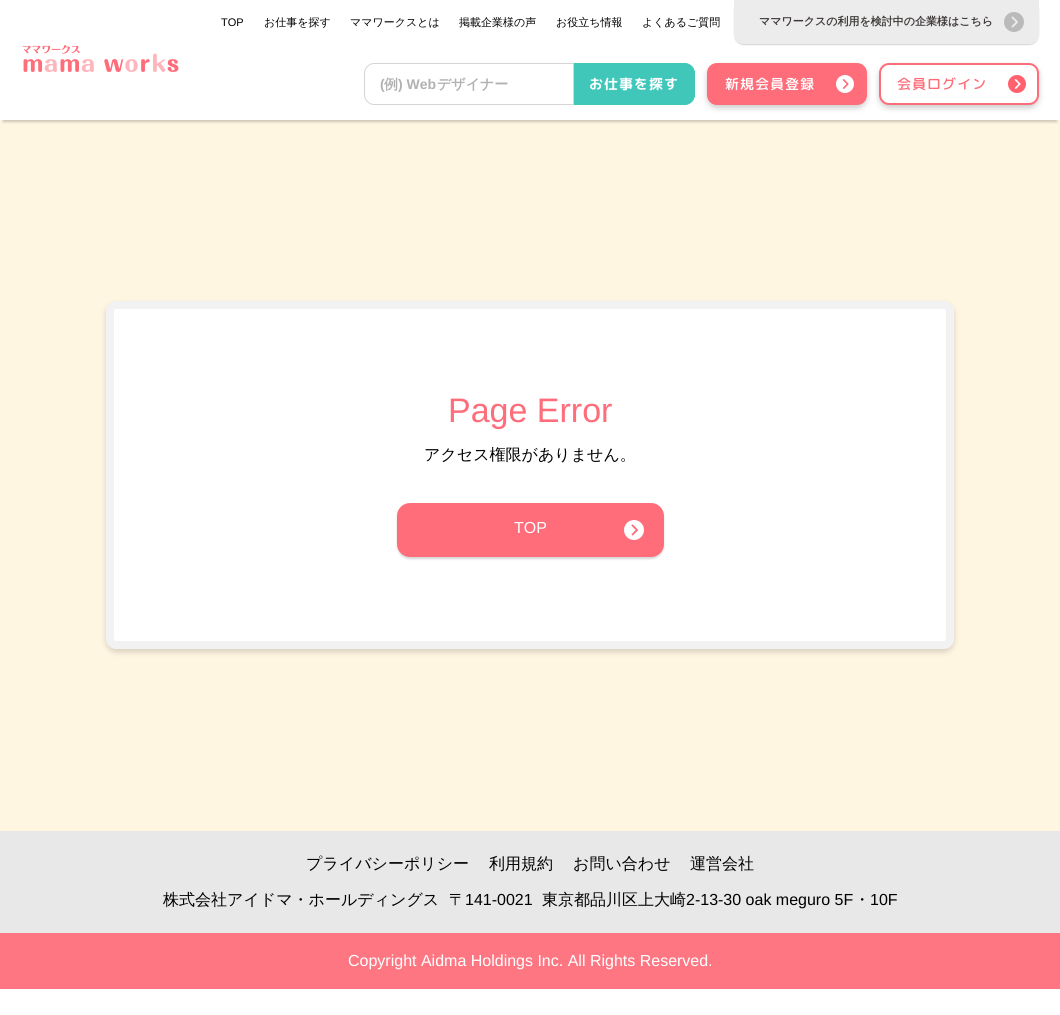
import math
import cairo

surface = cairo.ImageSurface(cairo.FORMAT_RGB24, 1060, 1015)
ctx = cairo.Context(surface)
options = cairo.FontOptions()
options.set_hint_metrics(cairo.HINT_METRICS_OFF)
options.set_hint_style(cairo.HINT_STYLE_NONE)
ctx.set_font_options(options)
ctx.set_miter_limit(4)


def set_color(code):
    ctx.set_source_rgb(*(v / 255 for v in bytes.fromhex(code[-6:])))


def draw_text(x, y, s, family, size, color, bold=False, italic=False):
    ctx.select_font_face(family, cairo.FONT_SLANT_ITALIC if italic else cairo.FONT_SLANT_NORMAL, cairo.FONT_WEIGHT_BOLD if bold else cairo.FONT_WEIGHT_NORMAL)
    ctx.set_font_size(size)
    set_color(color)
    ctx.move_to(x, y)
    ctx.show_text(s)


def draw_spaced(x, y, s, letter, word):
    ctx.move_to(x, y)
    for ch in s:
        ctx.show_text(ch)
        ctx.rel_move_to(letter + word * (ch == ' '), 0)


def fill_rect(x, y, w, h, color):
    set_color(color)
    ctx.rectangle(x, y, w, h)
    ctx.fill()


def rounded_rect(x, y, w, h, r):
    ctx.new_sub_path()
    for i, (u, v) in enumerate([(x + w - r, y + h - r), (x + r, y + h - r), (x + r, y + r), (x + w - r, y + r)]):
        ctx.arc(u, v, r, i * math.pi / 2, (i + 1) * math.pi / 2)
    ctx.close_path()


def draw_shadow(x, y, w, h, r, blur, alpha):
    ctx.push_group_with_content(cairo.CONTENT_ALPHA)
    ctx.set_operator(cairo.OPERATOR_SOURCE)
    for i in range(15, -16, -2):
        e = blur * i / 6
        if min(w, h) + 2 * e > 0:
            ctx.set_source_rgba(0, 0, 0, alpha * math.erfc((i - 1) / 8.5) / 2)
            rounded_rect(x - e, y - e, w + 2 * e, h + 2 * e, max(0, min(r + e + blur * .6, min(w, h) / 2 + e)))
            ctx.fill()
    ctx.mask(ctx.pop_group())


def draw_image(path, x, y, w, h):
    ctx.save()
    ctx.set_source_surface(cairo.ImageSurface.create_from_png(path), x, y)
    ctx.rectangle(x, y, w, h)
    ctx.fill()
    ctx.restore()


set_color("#ffffff")
ctx.paint()
fill_rect(0, 120, 1060, 711, "#fff6e2")
ctx.save()
ctx.rectangle(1, 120, 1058, 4)
ctx.clip()
set_color("#000000")
draw_shadow(3, 8, 1054, 114, 0, 1.5, 0.2)
ctx.restore()
draw_image("assets/img1.png", 22, 45, 157, 27)
draw_text(221, 26, "TOP", "Liberation Sans", 11, "#000000")
draw_text(264, 26, "お仕事を探す", "WenQuanYi Zen Hei Medium", 11, "#000000")
draw_text(350, 26, "ママワークスとは", "WenQuanYi Zen Hei Medium", 11, "#000000")
draw_text(459, 26, "掲載企業様の声", "WenQuanYi Zen Hei Medium", 11, "#000000")
draw_text(556, 26, "お役立ち情報", "WenQuanYi Zen Hei Medium", 11, "#000000")
draw_text(642, 26, "よくあるご質問", "WenQuanYi Zen Hei Medium", 11, "#000000")
ctx.save()
ctx.set_fill_rule(cairo.FILL_RULE_EVEN_ODD)
ctx.new_path()
ctx.move_to(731, 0)
ctx.line_to(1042, 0)
ctx.line_to(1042, 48)
ctx.line_to(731, 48)
ctx.close_path()
ctx.move_to(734, 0)
ctx.line_to(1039, 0)
ctx.line_to(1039, 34)
ctx.curve_to(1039, 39.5, 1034.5, 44, 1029, 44)
ctx.line_to(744, 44)
ctx.curve_to(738.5, 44, 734, 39.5, 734, 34)
ctx.close_path()
ctx.clip()
set_color("#000000")
draw_shadow(734, 1, 305, 44, 10, 0.5, 0.16)
ctx.restore()
ctx.set_source_rgba(0.502, 0.502, 0.502, 0.15)
ctx.new_path()
ctx.move_to(734, 0)
ctx.line_to(1039, 0)
ctx.line_to(1039, 34)
ctx.curve_to(1039, 39.5, 1034.5, 44, 1029, 44)
ctx.line_to(744, 44)
ctx.curve_to(738.5, 44, 734, 39.5, 734, 34)
ctx.close_path()
ctx.fill()
draw_text(759, 25, "ママワークスの利用を検討中の企業様はこちら", "WenQuanYi Zen Hei", 11, "#3f3a39", bold=True)
draw_image("assets/img2.png", 1004, 12, 20, 20)
ctx.new_path()
ctx.move_to(374, 63.5)
ctx.line_to(573.5, 63.5)
ctx.line_to(573.5, 104.5)
ctx.line_to(374, 104.5)
ctx.curve_to(369, 104.5, 364.5, 100, 364.5, 95)
ctx.line_to(364.5, 73)
ctx.curve_to(364.5, 68, 369, 63.5, 374, 63.5)
ctx.close_path()
set_color("#d4d4d4")
ctx.set_line_width(1)
ctx.stroke()
draw_text(380, 89, "(", "Liberation Sans", 14, "#b1b1b1", bold=True)
draw_text(384, 89, "例", "WenQuanYi Zen Hei", 14, "#b1b1b1", bold=True)
draw_text(398, 89, ") Web", "Liberation Sans", 14, "#b1b1b1", bold=True)
draw_text(437, 89, "デザイナー", "WenQuanYi Zen Hei", 14, "#b1b1b1", bold=True)
set_color("#40c7ba")
ctx.new_path()
ctx.move_to(574.5, 63.5)
ctx.line_to(685, 63.5)
ctx.curve_to(690, 63.5, 694.5, 68, 694.5, 73)
ctx.line_to(694.5, 95)
ctx.curve_to(694.5, 100, 690, 104.5, 685, 104.5)
ctx.line_to(574.5, 104.5)
ctx.close_path()
ctx.fill_preserve()
ctx.stroke()
ctx.select_font_face("Rounded Mplus 1c Bold", cairo.FONT_SLANT_NORMAL, cairo.FONT_WEIGHT_BOLD)
set_color("#ffffff")
draw_spaced(589, 89, "お仕事を探す", 1, 0)
set_color("#000000")
draw_shadow(707, 66, 160, 42, 10, 3, 0.2)
set_color("#ff6c7a")
rounded_rect(708, 64, 158, 40, 9)
ctx.fill_preserve()
ctx.set_line_width(2)
ctx.stroke()
ctx.select_font_face("Rounded Mplus 1c Medium")
set_color("#ffffff")
draw_spaced(725, 89, "新規会員登録", 1, 0)
draw_image("assets/img3.png", 836, 75, 18, 18)
set_color("#000000")
draw_shadow(879, 66, 160, 42, 10, 3, 0.2)
set_color("#ffffff")
rounded_rect(880, 64, 158, 40, 9)
ctx.fill_preserve()
set_color("#ff6c7a")
ctx.stroke()
draw_spaced(897, 89, "会員ログイン", 1, 0)
draw_image("assets/img4.png", 1008, 75, 18, 18)
set_color("#000000")
draw_shadow(106, 304, 848, 348, 10, 3, 0.16)
set_color("#ffffff")
rounded_rect(110, 305, 840, 340, 6)
ctx.fill_preserve()
set_color("#f2f2f2")
ctx.set_line_width(8)
ctx.stroke()
draw_text(448, 422, "Page Error", "Liberation Sans", 34, "#ff6c7a")
draw_text(424, 460, "アクセス権限がありません。", "WenQuanYi Zen Hei Medium", 16, "#000000")
set_color("#000000")
draw_shadow(397, 505, 267, 54, 13, 1, 0.16)
set_color("#ff6c7a")
rounded_rect(397, 503, 267, 54, 13)
ctx.fill()
draw_text(514, 533, "TOP", "Liberation Sans", 16, "#ffffff")
draw_image("assets/img5.png", 624, 520, 20, 20)
fill_rect(0, 831, 1060, 102, "#e8e8e8")
draw_text(306, 869, "プライバシーポリシー", "WenQuanYi Zen Hei Medium", 16, "#000000")
draw_text(489, 869, "利用規約", "WenQuanYi Zen Hei Medium", 16, "#000000")
draw_text(573, 869, "お問い合わせ", "WenQuanYi Zen Hei Medium", 16, "#000000")
draw_text(690, 869, "運営会社", "WenQuanYi Zen Hei Medium", 16, "#000000")
draw_text(163, 905, "株式会社アイドマ・ホールディングス", "WenQuanYi Zen Hei Medium", 16, "#000000")
draw_text(449, 905, "〒", "WenQuanYi Zen Hei Medium", 16, "#000000")
draw_text(465, 905, "141-0021", "Liberation Sans", 16, "#000000")
draw_text(542, 905, "東京都品川区上大崎", "WenQuanYi Zen Hei Medium", 16, "#000000")
draw_text(686, 905, "2-13-30 oak meguro 5F", "Liberation Sans", 16, "#000000")
draw_text(854, 905, "・", "WenQuanYi Zen Hei Medium", 16, "#000000")
draw_text(870, 905, "10F", "Liberation Sans", 16, "#000000")
fill_rect(0, 933, 1060, 56, "#ff7683")
draw_text(348, 966, "Copyright Aidma Holdings Inc. All Rights Reserved.", "Liberation Sans", 16, "#ffffff")
surface.write_to_png("output.png")
